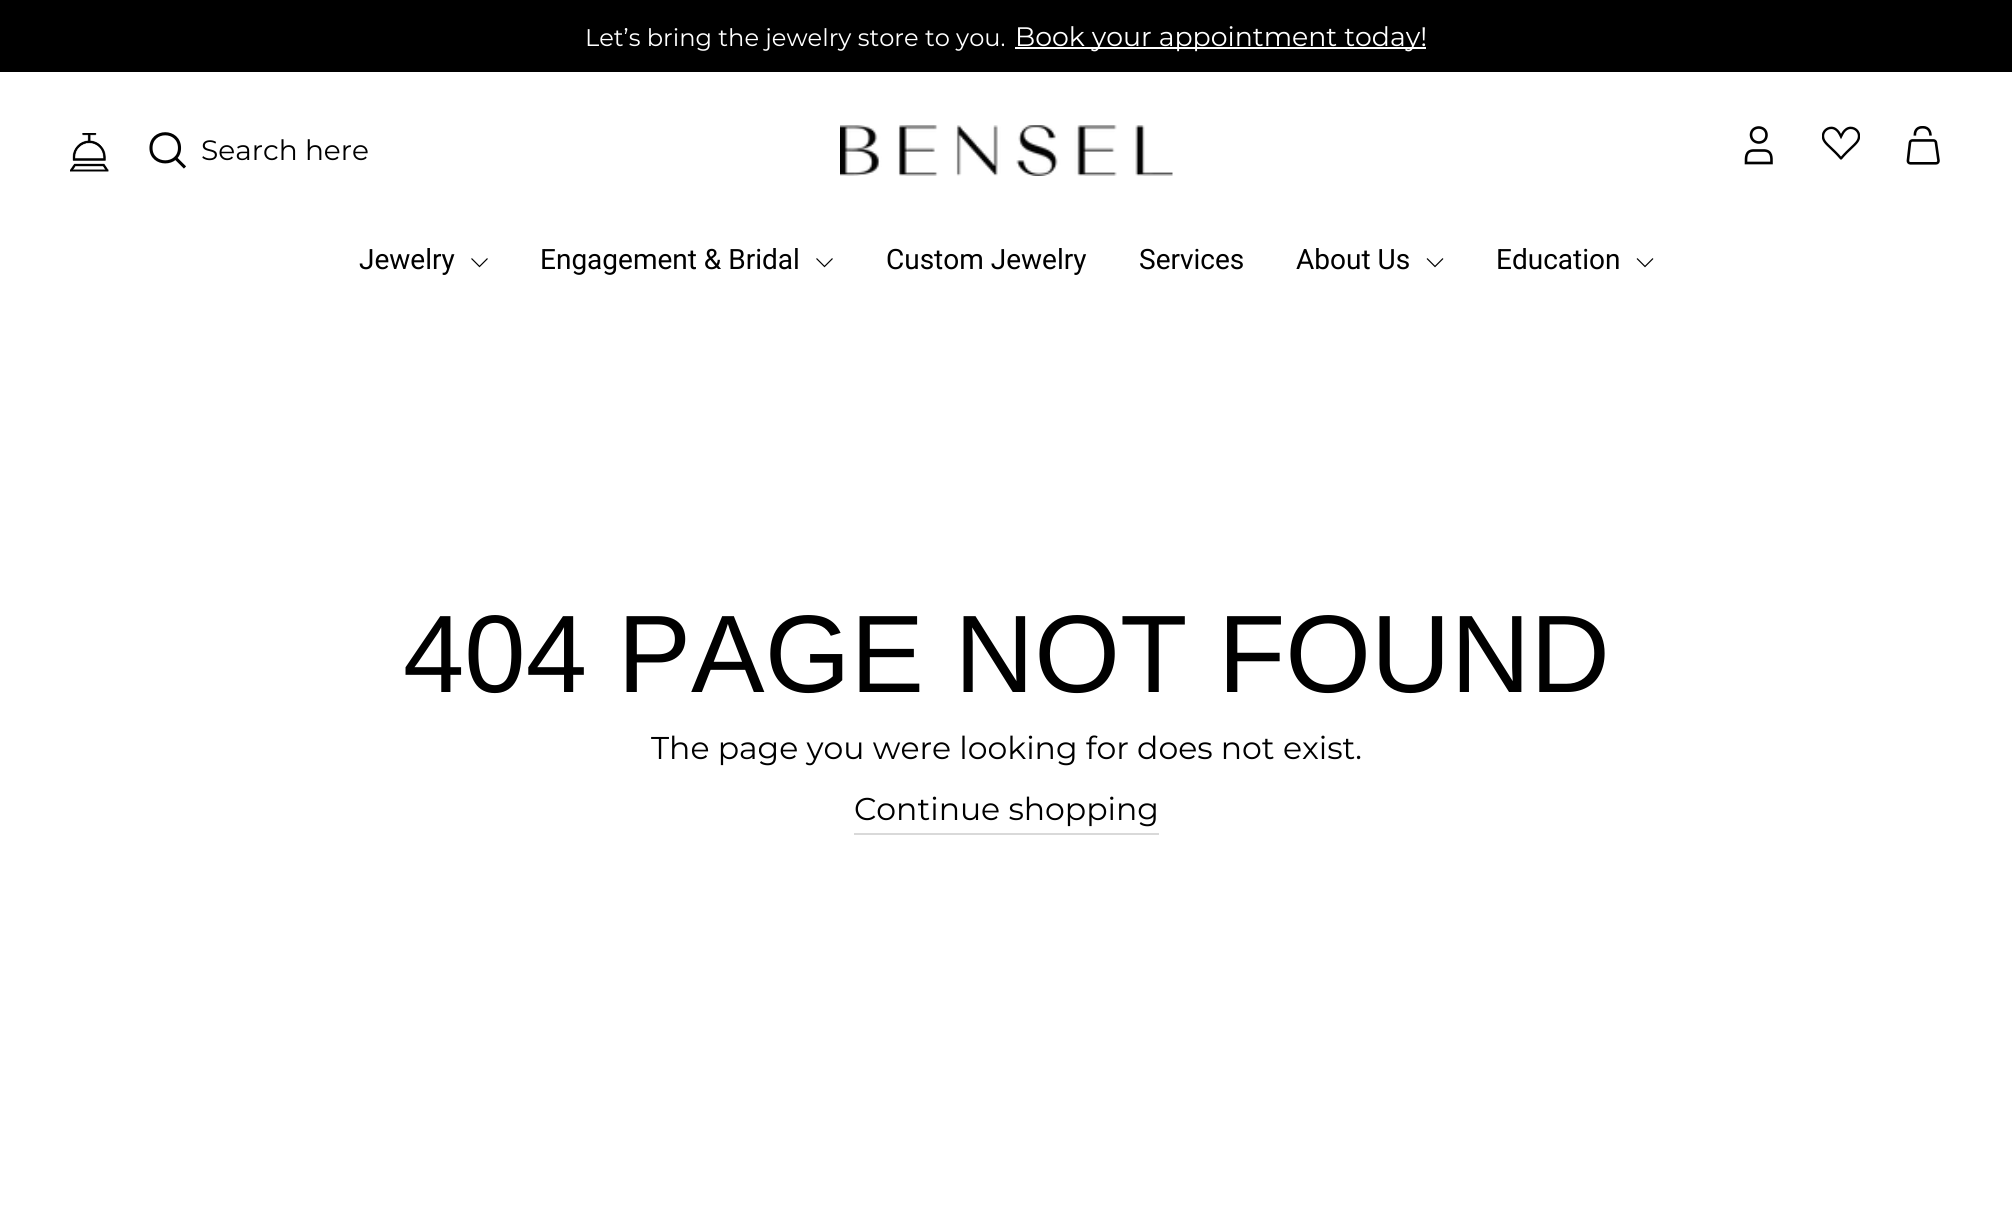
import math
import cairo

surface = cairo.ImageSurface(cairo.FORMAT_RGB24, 2012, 1231)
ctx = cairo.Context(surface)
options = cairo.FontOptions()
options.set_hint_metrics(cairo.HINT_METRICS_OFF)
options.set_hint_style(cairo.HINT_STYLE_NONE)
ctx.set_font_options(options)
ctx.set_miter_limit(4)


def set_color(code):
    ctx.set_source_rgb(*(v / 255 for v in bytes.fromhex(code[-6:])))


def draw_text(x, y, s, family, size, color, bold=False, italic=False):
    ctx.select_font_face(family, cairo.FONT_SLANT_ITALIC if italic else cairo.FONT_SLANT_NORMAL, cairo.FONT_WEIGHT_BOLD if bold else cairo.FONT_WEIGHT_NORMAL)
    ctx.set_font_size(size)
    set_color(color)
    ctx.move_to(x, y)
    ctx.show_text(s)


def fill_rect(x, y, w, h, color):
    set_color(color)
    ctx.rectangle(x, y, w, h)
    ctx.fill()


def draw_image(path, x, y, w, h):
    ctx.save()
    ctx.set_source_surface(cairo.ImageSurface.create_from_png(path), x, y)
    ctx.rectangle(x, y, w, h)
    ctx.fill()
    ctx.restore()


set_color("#ffffff")
ctx.paint()
fill_rect(0, 0, 2012, 72, "#000000")
draw_text(585, 46, "Let’s bring the jewelry store to you.", "Montserrat", 24.1, "#ffffff")
fill_rect(1015, 47, 411, 2, "#ffffff")
draw_text(1015, 46, "Book your appointment today!", "Montserrat", 26.75, "#ffffff")
draw_image("assets/img1.png", 70, 133, 39, 39)
ctx.new_path()
ctx.move_to(179.5, 148)
ctx.curve_to(179.5, 166.5, 151, 166.5, 151, 148)
ctx.curve_to(151, 129, 179.5, 129, 179.5, 148)
ctx.close_path()
ctx.move_to(185, 167.5)
ctx.line_to(175.5, 158)
set_color("#000000")
ctx.set_line_width(3.1)
ctx.stroke()
draw_text(201, 160, "Search here", "Montserrat", 28, "#000000")
draw_image("assets/img2.png", 840, 125, 333, 51)
ctx.new_path()
ctx.move_to(1766.5, 135)
ctx.curve_to(1766.5, 145, 1751.5, 145, 1751, 135)
ctx.curve_to(1751, 125, 1766.5, 125, 1766.5, 135)
ctx.close_path()
ctx.move_to(1758.5, 163)
ctx.line_to(1746, 163)
ctx.curve_to(1746, 157.5, 1745.5, 151, 1753, 150.5)
ctx.line_to(1764.5, 150.5)
ctx.curve_to(1772, 151, 1771.5, 157.5, 1771.5, 163)
ctx.close_path()
ctx.set_line_width(2.6)
ctx.set_line_cap(cairo.LINE_CAP_SQUARE)
ctx.stroke()
draw_image("assets/img3.png", 1822, 126, 38, 34)
draw_image("assets/img4.png", 1906, 126, 34, 39)
draw_text(359, 269, "Jewelry", "Roboto", 28, "#000000")
ctx.new_path()
ctx.move_to(471.5, 258.5)
ctx.line_to(479.5, 266.5)
ctx.line_to(487.5, 258.5)
ctx.set_line_width(1.2)
ctx.set_line_cap(cairo.LINE_CAP_BUTT)
ctx.stroke()
draw_text(540, 269, "Engagement & Bridal", "Roboto", 28, "#000000")
ctx.new_path()
ctx.move_to(816.5, 258.5)
ctx.line_to(824.5, 266.5)
ctx.line_to(832.5, 258.5)
ctx.stroke()
draw_text(886, 269, "Custom Jewelry", "Roboto", 28, "#000000")
draw_text(1139, 269, "Services", "Roboto", 28, "#000000")
draw_text(1296, 269, "About Us", "Roboto", 28, "#000000")
ctx.new_path()
ctx.move_to(1427, 258.5)
ctx.line_to(1435, 266.5)
ctx.line_to(1443, 258.5)
ctx.stroke()
draw_text(1496, 269, "Education", "Roboto", 28, "#000000")
ctx.new_path()
ctx.move_to(1637, 258.5)
ctx.line_to(1645, 266.5)
ctx.line_to(1653, 258.5)
ctx.stroke()
draw_text(403, 692, "404 PAGE NOT FOUND", "Liberation Sans", 110.25, "#000000")
draw_text(651, 759, "The page you were looking for does not exist.", "Montserrat", 31.5, "#000000")
fill_rect(854, 833, 305, 2, "#d9d9d9")
draw_text(854, 820, "Continue shopping", "Montserrat", 31.5, "#000000")
surface.write_to_png("output.png")
